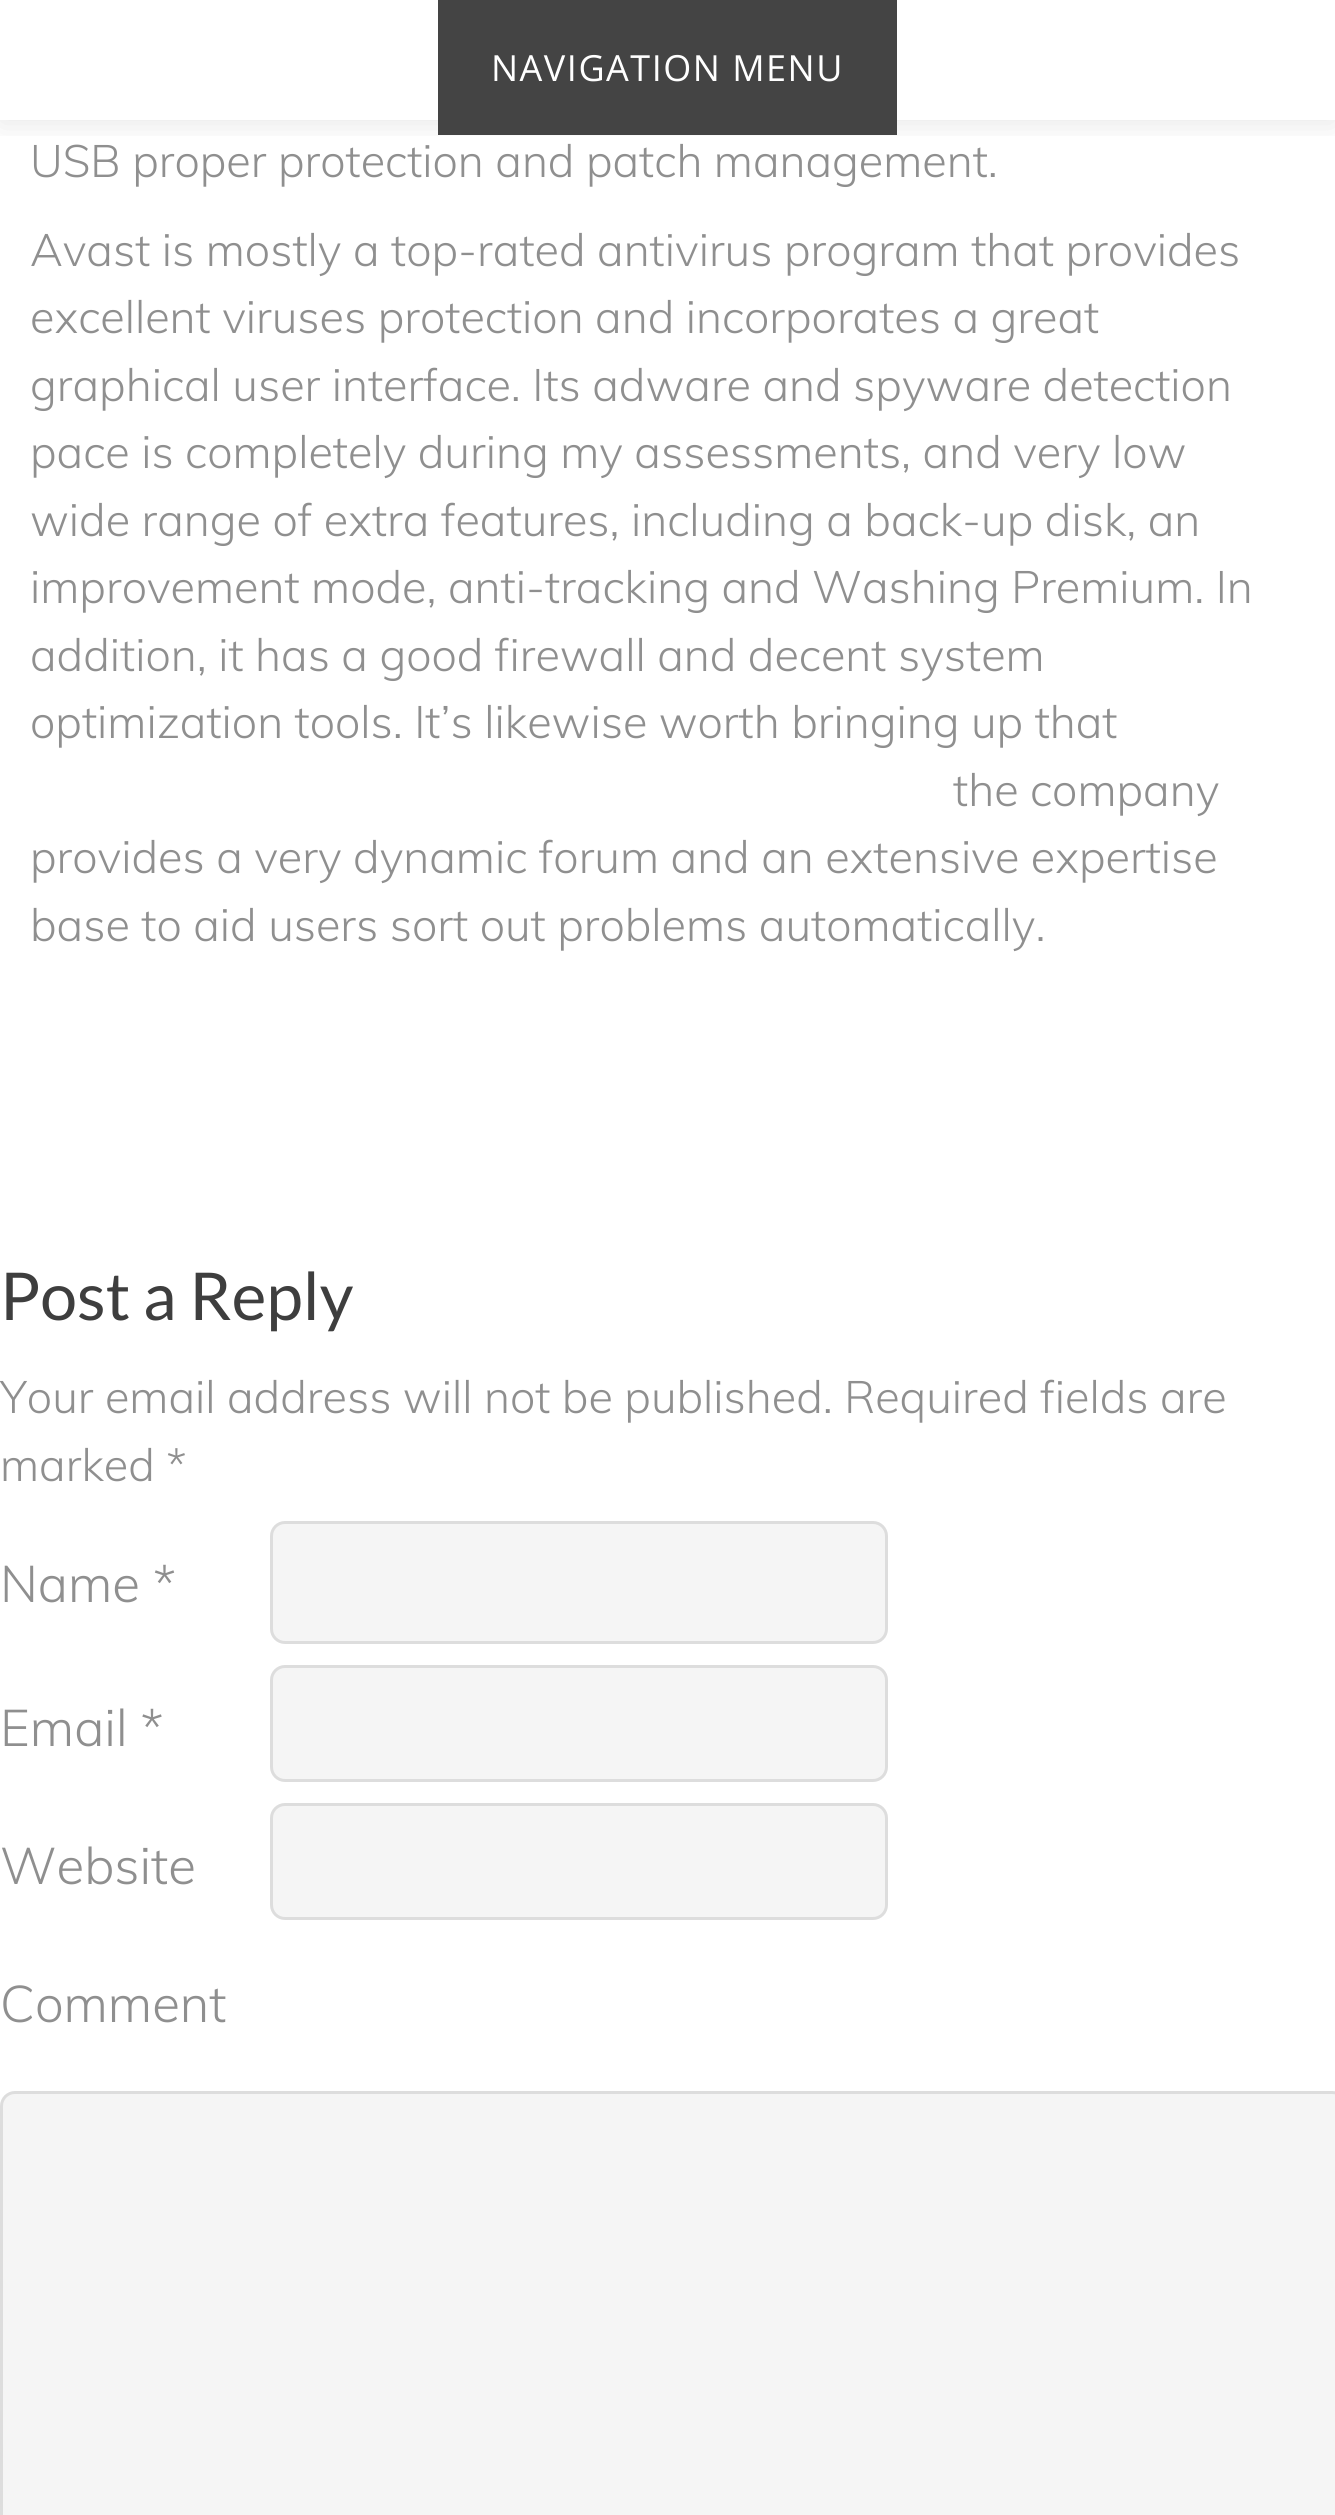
import math
import cairo

surface = cairo.ImageSurface(cairo.FORMAT_RGB24, 1335, 2515)
ctx = cairo.Context(surface)
options = cairo.FontOptions()
options.set_hint_metrics(cairo.HINT_METRICS_OFF)
options.set_hint_style(cairo.HINT_STYLE_NONE)
ctx.set_font_options(options)
ctx.set_miter_limit(4)


def set_color(code):
    ctx.set_source_rgb(*(v / 255 for v in bytes.fromhex(code[-6:])))


def draw_text(x, y, s, family, size, color, bold=False, italic=False):
    ctx.select_font_face(family, cairo.FONT_SLANT_ITALIC if italic else cairo.FONT_SLANT_NORMAL, cairo.FONT_WEIGHT_BOLD if bold else cairo.FONT_WEIGHT_NORMAL)
    ctx.set_font_size(size)
    set_color(color)
    ctx.move_to(x, y)
    ctx.show_text(s)


def draw_spaced(x, y, s, letter, word):
    ctx.move_to(x, y)
    for ch in s:
        ctx.show_text(ch)
        ctx.rel_move_to(letter + word * (ch == ' '), 0)


def fill_rect(x, y, w, h, color):
    set_color(color)
    ctx.rectangle(x, y, w, h)
    ctx.fill()


def rounded_rect(x, y, w, h, r):
    ctx.new_sub_path()
    for i, (u, v) in enumerate([(x + w - r, y + h - r), (x + r, y + h - r), (x + r, y + r), (x + w - r, y + r)]):
        ctx.arc(u, v, r, i * math.pi / 2, (i + 1) * math.pi / 2)
    ctx.close_path()


def draw_shadow(x, y, w, h, r, blur, alpha):
    ctx.push_group_with_content(cairo.CONTENT_ALPHA)
    ctx.set_operator(cairo.OPERATOR_SOURCE)
    for i in range(15, -16, -2):
        e = blur * i / 6
        if min(w, h) + 2 * e > 0:
            ctx.set_source_rgba(0, 0, 0, alpha * math.erfc((i - 1) / 8.5) / 2)
            rounded_rect(x - e, y - e, w + 2 * e, h + 2 * e, max(0, min(r + e + blur * .6, min(w, h) / 2 + e)))
            ctx.fill()
    ctx.mask(ctx.pop_group())


set_color("#ffffff")
ctx.paint()
ctx.save()
ctx.rectangle(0, 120, 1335, 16)
ctx.clip()
set_color("#000000")
draw_shadow(0, 3, 1335, 120, 0, 15, 0.1)
ctx.restore()
fill_rect(438, 0, 459, 135, "#444444")
ctx.select_font_face("Open Sans")
ctx.set_font_size(36)
set_color("#ffffff")
draw_spaced(491, 81, "NAVIGATION MENU", 1.5, 0)
draw_text(30, 177, "USB proper protection and patch management.", "Muli Light", 45, "#8f8f8f")
draw_text(30, 266, "Avast is mostly a top-rated antivirus program that provides", "Muli Light", 45, "#8f8f8f")
draw_text(30, 333, "excellent viruses protection and incorporates a great", "Muli Light", 45, "#8f8f8f")
draw_text(30, 401, "graphical user interface. Its adware and spyware detection", "Muli Light", 45, "#8f8f8f")
draw_text(30, 468, "pace is completely during my assessments, and very low", "Muli Light", 45, "#8f8f8f")
draw_text(30, 536, "wide range of extra features, including a back-up disk, an", "Muli Light", 45, "#8f8f8f")
draw_text(30, 603, "improvement mode, anti-tracking and Washing Premium. In", "Muli Light", 45, "#8f8f8f")
draw_text(30, 671, "addition, it has a good firewall and decent system", "Muli Light", 45, "#8f8f8f")
draw_text(30, 738, "optimization tools. It’s likewise worth bringing up that", "Muli Light", 45, "#8f8f8f")
draw_text(953, 806, "the company", "Muli Light", 45, "#8f8f8f")
draw_text(30, 873, "provides a very dynamic forum and an extensive expertise", "Muli Light", 45, "#8f8f8f")
draw_text(30, 941, "base to aid users sort out problems automatically.", "Muli Light", 45, "#8f8f8f")
draw_text(0, 1320, "Post a Reply", "Lato", 66, "#3e3e3e")
draw_text(0, 1413, "Your email address will not be published. Required fields are", "Muli Light", 45, "#8f8f8f")
draw_text(0, 1481, "marked *", "Muli Light", 45, "#8f8f8f")
draw_text(0, 1602, "Name *", "Muli Light", 51, "#8f8f8f")
set_color("#f5f5f5")
rounded_rect(271.5, 1522.5, 615, 120, 13.5)
ctx.fill_preserve()
set_color("#dddddd")
ctx.set_line_width(3)
ctx.stroke()
draw_text(0, 1746, "Email *", "Muli Light", 51, "#8f8f8f")
set_color("#f5f5f5")
rounded_rect(271.5, 1666.5, 615, 114, 13.5)
ctx.fill_preserve()
set_color("#dddddd")
ctx.stroke()
draw_text(0, 1884, "Website", "Muli Light", 51, "#8f8f8f")
set_color("#f5f5f5")
rounded_rect(271.5, 1804.5, 615, 114, 13.5)
ctx.fill_preserve()
set_color("#dddddd")
ctx.stroke()
draw_text(0, 2022, "Comment", "Muli Light", 51, "#8f8f8f")
set_color("#f5f5f5")
rounded_rect(1.5, 2092.5, 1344, 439, 13.5)
ctx.fill_preserve()
set_color("#dddddd")
ctx.stroke()
surface.write_to_png("output.png")
